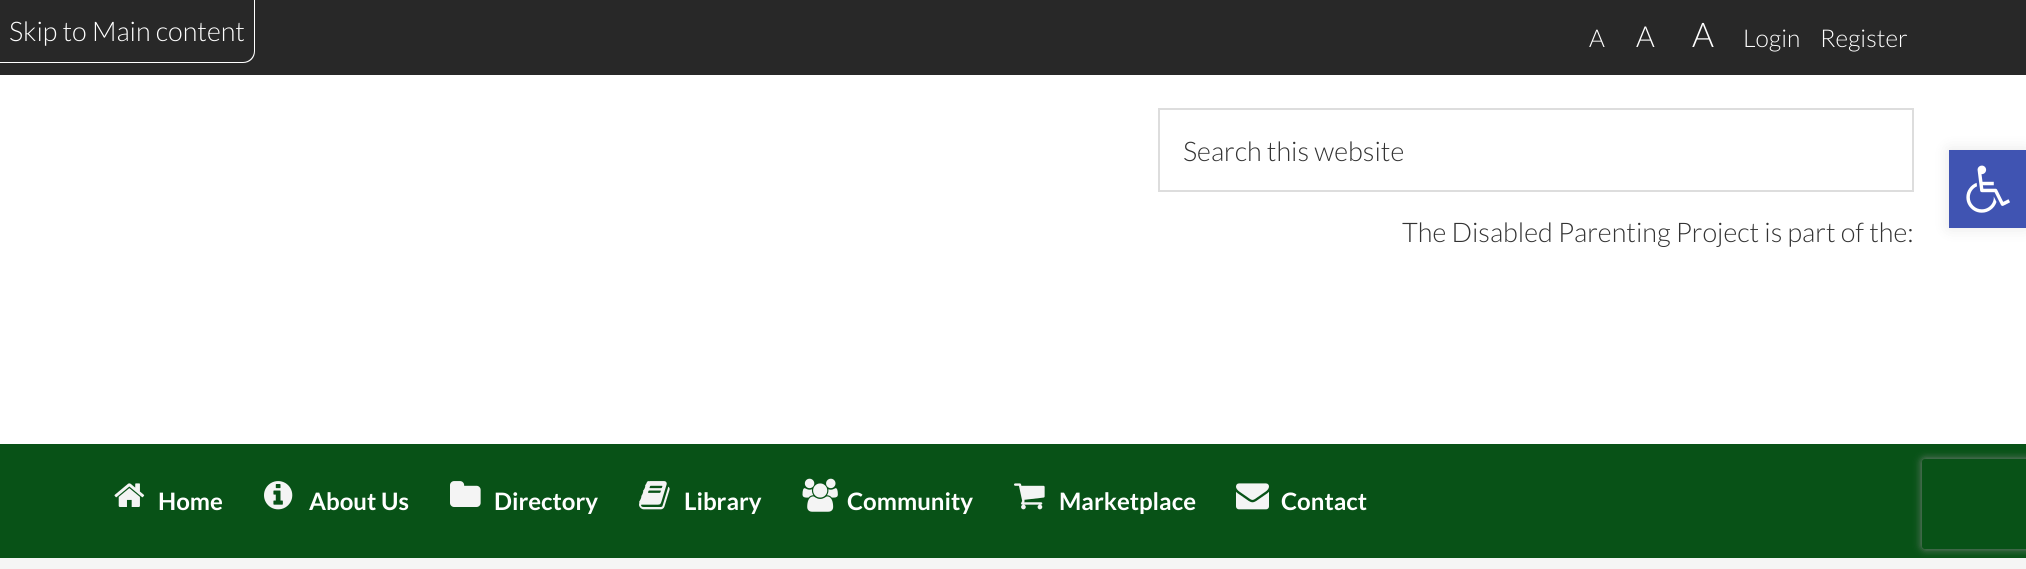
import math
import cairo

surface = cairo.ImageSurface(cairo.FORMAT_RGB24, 2026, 569)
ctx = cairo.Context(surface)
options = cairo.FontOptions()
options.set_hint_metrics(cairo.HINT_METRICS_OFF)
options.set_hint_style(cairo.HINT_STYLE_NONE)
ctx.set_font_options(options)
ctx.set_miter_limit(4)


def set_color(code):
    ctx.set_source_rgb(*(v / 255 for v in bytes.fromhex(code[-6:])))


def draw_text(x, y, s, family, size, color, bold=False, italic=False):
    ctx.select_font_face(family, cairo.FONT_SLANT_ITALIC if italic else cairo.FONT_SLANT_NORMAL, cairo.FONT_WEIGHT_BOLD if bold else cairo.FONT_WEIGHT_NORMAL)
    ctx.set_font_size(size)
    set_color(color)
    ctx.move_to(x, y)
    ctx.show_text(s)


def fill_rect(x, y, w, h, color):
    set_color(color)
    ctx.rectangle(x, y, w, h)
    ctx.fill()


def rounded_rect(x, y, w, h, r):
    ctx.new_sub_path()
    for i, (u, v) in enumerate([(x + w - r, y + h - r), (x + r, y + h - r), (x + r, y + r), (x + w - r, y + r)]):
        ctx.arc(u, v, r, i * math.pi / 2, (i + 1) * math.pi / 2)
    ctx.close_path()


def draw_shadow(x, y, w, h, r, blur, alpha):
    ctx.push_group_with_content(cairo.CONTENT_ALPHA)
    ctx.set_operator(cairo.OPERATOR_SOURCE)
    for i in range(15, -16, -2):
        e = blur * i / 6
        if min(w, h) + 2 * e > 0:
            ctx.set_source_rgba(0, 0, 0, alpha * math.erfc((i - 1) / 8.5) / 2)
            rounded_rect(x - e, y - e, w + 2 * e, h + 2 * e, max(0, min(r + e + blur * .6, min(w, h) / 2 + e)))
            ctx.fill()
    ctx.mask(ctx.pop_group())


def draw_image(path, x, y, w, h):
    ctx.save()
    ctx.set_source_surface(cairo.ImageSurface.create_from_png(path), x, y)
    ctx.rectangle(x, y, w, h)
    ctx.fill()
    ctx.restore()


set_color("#f5f5f5")
ctx.paint()
fill_rect(0, 0, 2026, 75, "#282828")
set_color("#ffffff")
ctx.set_fill_rule(cairo.FILL_RULE_EVEN_ODD)
ctx.new_path()
ctx.move_to(0, 0)
ctx.line_to(255, 0)
ctx.line_to(255, 51)
ctx.curve_to(255, 58, 250, 63, 243, 63)
ctx.line_to(0, 63)
ctx.close_path()
ctx.move_to(0, 0)
ctx.line_to(254, 0)
ctx.line_to(254, 51)
ctx.curve_to(254, 57, 249, 62, 243, 62)
ctx.line_to(0, 62)
ctx.close_path()
ctx.fill()
draw_text(9, 41, "Skip to Main content", "Lato Light", 27, "#ffffff")
draw_text(1589, 47, "A", "Lato Light", 24.5, "#ffffff")
draw_text(1636, 47, "A", "Lato Light", 29, "#ffffff")
draw_text(1692, 47, "A", "Lato Light", 34, "#ffffff")
draw_text(1743, 47, "Login", "Lato Light", 24.5, "#ffffff")
draw_text(1820, 47, "Register", "Lato Light", 24.5, "#ffffff")
fill_rect(0, 75, 2026, 369, "#ffffff")
ctx.rectangle(1159, 109, 754, 82)
set_color("#dddddd")
ctx.stroke()
draw_text(1183, 161, "Search this website", "Lato Light", 27, "#333333")
draw_text(1402, 242, "The Disabled Parenting Project is part of the:", "Lato Light", 27, "#333333")
fill_rect(0, 444, 2026, 114, "#085217")
draw_image("assets/img1.png", 114, 483, 31, 24)
draw_text(158, 510, "Home", "Lato", 24, "#ffffff", bold=True)
draw_image("assets/img2.png", 264, 481, 29, 29)
draw_text(309, 510, "About Us", "Lato", 24, "#ffffff", bold=True)
draw_image("assets/img3.png", 450, 481, 31, 26)
draw_text(494, 510, "Directory", "Lato", 24, "#ffffff", bold=True)
draw_image("assets/img4.png", 639, 481, 31, 29)
draw_text(684, 510, "Library", "Lato", 24, "#ffffff", bold=True)
draw_image("assets/img5.png", 802, 478, 36, 34)
draw_text(847, 510, "Community", "Lato", 24, "#ffffff", bold=True)
draw_image("assets/img6.png", 1014, 483, 31, 27)
draw_text(1059, 510, "Marketplace", "Lato", 24, "#ffffff", bold=True)
draw_image("assets/img7.png", 1236, 483, 33, 27)
draw_text(1281, 510, "Contact", "Lato", 24, "#ffffff", bold=True)
set_color("#000000")
draw_shadow(1949, 150, 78, 78, 0, 7.5, 0.1)
fill_rect(1949, 150, 77, 78, "#4054b2")
draw_image("assets/img8.png", 1966, 165, 44, 48)
ctx.save()
ctx.new_path()
ctx.move_to(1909, 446)
ctx.line_to(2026, 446)
ctx.line_to(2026, 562)
ctx.line_to(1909, 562)
ctx.close_path()
ctx.move_to(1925, 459)
ctx.line_to(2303, 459)
ctx.curve_to(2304.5, 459, 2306, 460.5, 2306, 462)
ctx.line_to(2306, 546)
ctx.curve_to(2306, 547.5, 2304.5, 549, 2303, 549)
ctx.line_to(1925, 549)
ctx.curve_to(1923.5, 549, 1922, 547.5, 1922, 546)
ctx.line_to(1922, 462)
ctx.curve_to(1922, 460.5, 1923.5, 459, 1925, 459)
ctx.close_path()
ctx.clip()
set_color("#808080")
draw_shadow(1922, 459, 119, 90, 3, 4, 1)
ctx.restore()
surface.write_to_png("output.png")
